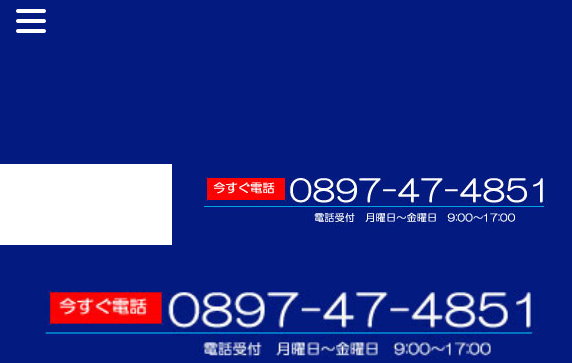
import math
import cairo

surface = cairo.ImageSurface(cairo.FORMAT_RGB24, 572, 363)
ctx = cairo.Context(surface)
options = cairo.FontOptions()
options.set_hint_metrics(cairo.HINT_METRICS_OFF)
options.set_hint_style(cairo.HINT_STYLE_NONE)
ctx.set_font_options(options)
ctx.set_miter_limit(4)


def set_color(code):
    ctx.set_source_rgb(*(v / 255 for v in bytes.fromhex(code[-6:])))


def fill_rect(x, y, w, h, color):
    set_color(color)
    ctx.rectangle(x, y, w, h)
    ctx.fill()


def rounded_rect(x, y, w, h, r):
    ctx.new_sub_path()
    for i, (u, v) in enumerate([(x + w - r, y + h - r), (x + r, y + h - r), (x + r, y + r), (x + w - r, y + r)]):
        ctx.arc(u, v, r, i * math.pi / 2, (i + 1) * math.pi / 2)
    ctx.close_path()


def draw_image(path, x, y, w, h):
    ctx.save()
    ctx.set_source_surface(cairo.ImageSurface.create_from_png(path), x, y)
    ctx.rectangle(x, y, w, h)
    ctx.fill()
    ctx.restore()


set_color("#ffffff")
ctx.paint()
fill_rect(0, 0, 572, 164, "#031a80")
draw_image("assets/img1.png", 172, 164, 400, 81)
draw_image("assets/img2.png", 0, 245, 572, 118)
set_color("#ffffff")
rounded_rect(16, 9, 30, 4, 2)
ctx.fill()
rounded_rect(16, 19, 30, 4, 2)
ctx.fill()
rounded_rect(16, 29, 30, 4, 2)
ctx.fill()
surface.write_to_png("output.png")
